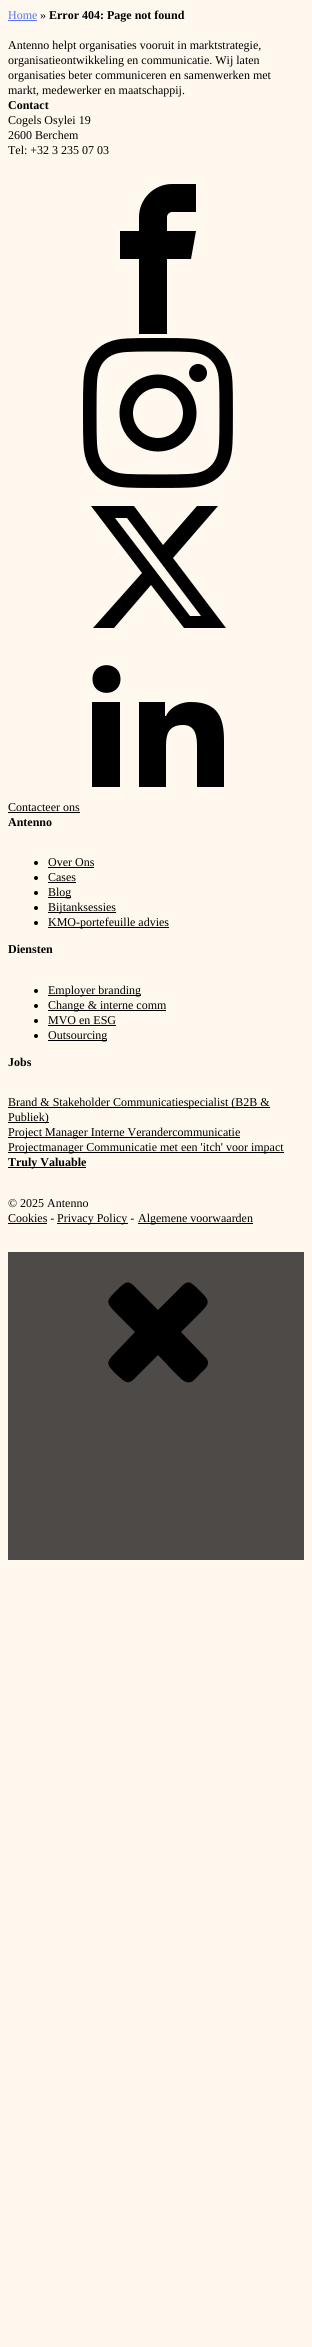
import math
import cairo

surface = cairo.ImageSurface(cairo.FORMAT_RGB24, 312, 2347)
ctx = cairo.Context(surface)
options = cairo.FontOptions()
options.set_hint_metrics(cairo.HINT_METRICS_OFF)
options.set_hint_style(cairo.HINT_STYLE_NONE)
ctx.set_font_options(options)
ctx.set_miter_limit(4)


def set_color(code):
    ctx.set_source_rgb(*(v / 255 for v in bytes.fromhex(code[-6:])))


def draw_text(x, y, s, family, size, color, bold=False, italic=False):
    ctx.select_font_face(family, cairo.FONT_SLANT_ITALIC if italic else cairo.FONT_SLANT_NORMAL, cairo.FONT_WEIGHT_BOLD if bold else cairo.FONT_WEIGHT_NORMAL)
    ctx.set_font_size(size)
    set_color(color)
    ctx.move_to(x, y)
    ctx.show_text(s)


def fill_rect(x, y, w, h, color):
    set_color(color)
    ctx.rectangle(x, y, w, h)
    ctx.fill()


def draw_image(path, x, y, w, h):
    ctx.save()
    ctx.set_source_surface(cairo.ImageSurface.create_from_png(path), x, y)
    ctx.rectangle(x, y, w, h)
    ctx.fill()
    ctx.restore()


set_color("#fff8ef")
ctx.paint()
draw_text(8, 19, "Home", "Liberation Serif", 12, "#5b77ec")
fill_rect(8, 20, 29, 1, "#5b77ec")
draw_text(40, 19, "»", "Liberation Serif", 12, "#000000")
draw_text(49, 19, "Error 404: Page not found", "Liberation Serif", 12, "#000000", bold=True)
draw_text(8, 49, "Antenno helpt organisaties vooruit in marktstrategie,", "Liberation Serif", 12, "#000000")
draw_text(8, 64, "organisatieontwikkeling en communicatie. Wij laten", "Liberation Serif", 12, "#000000")
draw_text(8, 79, "organisaties beter communiceren en samenwerken met", "Liberation Serif", 12, "#000000")
draw_text(8, 94, "markt, medewerker en maatschappij.", "Liberation Serif", 12, "#000000")
draw_text(8, 109, "Contact", "Liberation Serif", 12, "#000000", bold=True)
draw_text(8, 124, "Cogels Osylei 19", "Liberation Serif", 12, "#000000")
draw_text(8, 139, "2600 Berchem", "Liberation Serif", 12, "#000000")
draw_text(8, 154, "Tel: +32 3 235 07 03", "Liberation Serif", 12, "#000000")
ctx.new_path()
ctx.move_to(172, 212)
ctx.line_to(196, 212)
ctx.line_to(196, 184)
ctx.line_to(172, 184)
ctx.curve_to(154, 184, 139, 199, 139, 217)
ctx.line_to(139, 231)
ctx.line_to(120, 231)
ctx.line_to(120, 259)
ctx.line_to(139, 259)
ctx.line_to(139, 334)
ctx.line_to(167, 334)
ctx.line_to(167, 259)
ctx.line_to(191, 259)
ctx.line_to(196, 231)
ctx.line_to(167, 231)
ctx.line_to(167, 217)
ctx.curve_to(167, 214, 170, 212, 172, 212)
ctx.close_path()
ctx.fill()
draw_image("assets/img1.png", 83, 338, 150, 150)
ctx.new_path()
ctx.move_to(197, 506)
ctx.line_to(218, 506)
ctx.line_to(173, 558)
ctx.line_to(226, 628)
ctx.line_to(184, 628)
ctx.line_to(151, 585)
ctx.line_to(114, 628)
ctx.line_to(93, 628)
ctx.line_to(142, 573)
ctx.line_to(91, 506)
ctx.line_to(134, 506)
ctx.line_to(163, 545)
ctx.close_path()
ctx.move_to(190, 616)
ctx.line_to(201, 616)
ctx.line_to(127, 518)
ctx.line_to(115, 518)
ctx.close_path()
ctx.fill()
ctx.new_path()
ctx.move_to(120.5, 679)
ctx.curve_to(120.5, 697.5, 92.5, 697.5, 92.5, 679)
ctx.curve_to(92.5, 660.5, 120.5, 660.5, 120.5, 679)
ctx.close_path()
ctx.fill()
fill_rect(92, 702, 28, 85, "#000000")
ctx.new_path()
ctx.move_to(139, 702)
ctx.line_to(165, 702)
ctx.line_to(165, 716)
ctx.line_to(166, 716)
ctx.curve_to(169, 709, 178, 702, 191, 702)
ctx.curve_to(219, 702, 224, 719, 224, 741)
ctx.line_to(224, 787)
ctx.line_to(197, 787)
ctx.line_to(197, 747)
ctx.curve_to(197, 737, 196, 725, 183, 725)
ctx.curve_to(168, 725, 166, 735, 166, 746)
ctx.line_to(166, 787)
ctx.line_to(139, 787)
ctx.close_path()
ctx.fill()
draw_text(8, 811, "Contacteer ons", "Liberation Serif", 12, "#000000")
fill_rect(8, 812, 72, 1, "#000000")
draw_text(8, 826, "Antenno", "Liberation Serif", 12, "#000000", bold=True)
ctx.new_path()
ctx.arc(36, 863, 2, 0, 2 * math.pi)
ctx.fill()
draw_text(48, 866, "Over Ons", "Liberation Serif", 12, "#000000")
fill_rect(48, 867, 46, 1, "#000000")
ctx.new_path()
ctx.arc(36, 878, 2, 0, 2 * math.pi)
ctx.fill()
draw_text(48, 881, "Cases", "Liberation Serif", 12, "#000000")
fill_rect(48, 882, 28, 1, "#000000")
ctx.new_path()
ctx.arc(36, 893, 2, 0, 2 * math.pi)
ctx.fill()
fill_rect(48, 897, 23, 1, "#000000")
draw_text(48, 896, "Blog", "Liberation Serif", 12, "#000000")
ctx.new_path()
ctx.arc(36, 908, 2, 0, 2 * math.pi)
ctx.fill()
fill_rect(48, 912, 68, 1, "#000000")
draw_text(48, 911, "Bijtanksessies", "Liberation Serif", 12, "#000000")
ctx.new_path()
ctx.arc(36, 923, 2, 0, 2 * math.pi)
ctx.fill()
fill_rect(48, 927, 121, 1, "#000000")
draw_text(48, 926, "KMO-portefeuille advies", "Liberation Serif", 12, "#000000")
draw_text(8, 953, "Diensten", "Liberation Serif", 12, "#000000", bold=True)
ctx.new_path()
ctx.arc(36, 991, 2, 0, 2 * math.pi)
ctx.fill()
fill_rect(48, 995, 93, 1, "#000000")
draw_text(48, 994, "Employer branding", "Liberation Serif", 12, "#000000")
ctx.new_path()
ctx.arc(36, 1006, 2, 0, 2 * math.pi)
ctx.fill()
fill_rect(48, 1010, 118, 1, "#000000")
draw_text(48, 1009, "Change & interne comm", "Liberation Serif", 12, "#000000")
ctx.new_path()
ctx.arc(36, 1021, 2, 0, 2 * math.pi)
ctx.fill()
draw_text(48, 1024, "MVO en ESG", "Liberation Serif", 12, "#000000")
fill_rect(48, 1025, 68, 1, "#000000")
ctx.new_path()
ctx.arc(36, 1036, 2, 0, 2 * math.pi)
ctx.fill()
fill_rect(48, 1040, 59, 1, "#000000")
draw_text(48, 1039, "Outsourcing", "Liberation Serif", 12, "#000000")
draw_text(8, 1066, "Jobs", "Liberation Serif", 12, "#000000", bold=True)
fill_rect(8, 1107, 262, 1, "#000000")
draw_text(8, 1106, "Brand & Stakeholder Communicatiespecialist (B2B &", "Liberation Serif", 12, "#000000")
fill_rect(8, 1122, 41, 1, "#000000")
draw_text(8, 1121, "Publiek)", "Liberation Serif", 12, "#000000")
fill_rect(8, 1137, 232, 1, "#000000")
draw_text(8, 1136, "Project Manager Interne Verandercommunicatie", "Liberation Serif", 12, "#000000")
fill_rect(8, 1152, 276, 1, "#000000")
draw_text(8, 1151, "Projectmanager Communicatie met een 'itch' voor impact", "Liberation Serif", 12, "#000000")
fill_rect(8, 1167, 78, 1, "#000000")
draw_text(8, 1166, "Truly Valuable", "Liberation Serif", 12, "#000000", bold=True)
draw_text(8, 1207, "© 2025 Antenno", "Liberation Serif", 12, "#000000")
draw_text(8, 1222, "Cookies -", "Liberation Serif", 12, "#000000")
fill_rect(8, 1223, 39, 1, "#000000")
fill_rect(57, 1223, 71, 1, "#000000")
draw_text(57, 1222, "Privacy Policy -", "Liberation Serif", 12, "#000000")
fill_rect(138, 1223, 115, 1, "#000000")
draw_text(138, 1222, "Algemene voorwaarden", "Liberation Serif", 12, "#000000")
fill_rect(8, 1252, 296, 308, "#4d4a48")
set_color("#000000")
ctx.new_path()
ctx.move_to(208, 1363)
ctx.curve_to(208, 1368, 201, 1372, 198, 1376)
ctx.line_to(193, 1381)
ctx.curve_to(185, 1386, 179, 1376, 174, 1372)
ctx.line_to(158, 1355)
ctx.line_to(137, 1376)
ctx.curve_to(128, 1386, 126, 1383, 116, 1374)
ctx.curve_to(107, 1365, 105, 1363, 115, 1353)
ctx.line_to(135, 1332)
ctx.line_to(115, 1312)
ctx.curve_to(105, 1302, 107, 1300, 116, 1291)
ctx.curve_to(126, 1281, 128, 1279, 137, 1289)
ctx.line_to(158, 1310)
ctx.line_to(179, 1289)
ctx.curve_to(188, 1279, 190, 1281, 200, 1291)
ctx.curve_to(209, 1300, 211, 1302, 201, 1312)
ctx.line_to(181, 1332)
ctx.line_to(205, 1357)
ctx.curve_to(207, 1358, 208, 1361, 208, 1363)
ctx.close_path()
ctx.fill()
surface.write_to_png("output.png")
